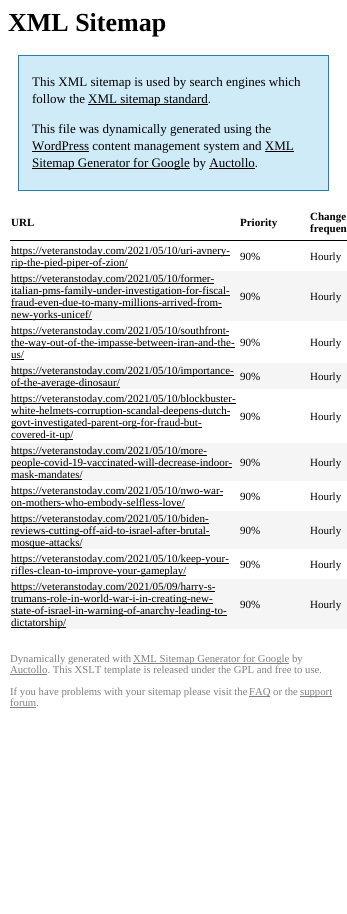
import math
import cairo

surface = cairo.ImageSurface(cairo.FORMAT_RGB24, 347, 914)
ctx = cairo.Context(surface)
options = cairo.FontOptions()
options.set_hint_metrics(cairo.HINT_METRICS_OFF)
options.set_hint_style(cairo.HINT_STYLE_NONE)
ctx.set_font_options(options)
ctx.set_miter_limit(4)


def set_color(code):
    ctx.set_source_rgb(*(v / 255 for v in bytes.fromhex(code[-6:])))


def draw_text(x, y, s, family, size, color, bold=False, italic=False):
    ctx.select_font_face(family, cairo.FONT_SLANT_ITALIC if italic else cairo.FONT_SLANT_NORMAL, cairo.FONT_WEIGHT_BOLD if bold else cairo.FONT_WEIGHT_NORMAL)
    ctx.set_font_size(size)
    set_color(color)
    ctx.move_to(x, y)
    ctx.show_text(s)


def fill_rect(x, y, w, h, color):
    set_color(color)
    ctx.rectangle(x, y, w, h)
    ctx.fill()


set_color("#ffffff")
ctx.paint()
draw_text(8, 31, "XML Sitemap", "Liberation Serif", 26, "#000000", bold=True)
set_color("#cfebf7")
ctx.rectangle(18.5, 55.5, 310, 135)
ctx.fill_preserve()
set_color("#2580b2")
ctx.set_line_width(1)
ctx.stroke()
draw_text(32, 86, "This XML sitemap is used by search engines which", "Liberation Serif", 13, "#000000")
draw_text(32, 103, "follow the", "Liberation Serif", 13, "#000000")
fill_rect(88, 104, 120, 1, "#000000")
draw_text(88, 103, "XML sitemap standard.", "Liberation Serif", 13, "#000000")
draw_text(32, 133, "This file was dynamically generated using the", "Liberation Serif", 13, "#000000")
fill_rect(32, 151, 57, 1, "#000000")
draw_text(32, 150, "WordPress content management system and XML", "Liberation Serif", 13, "#000000")
fill_rect(32, 168, 158, 1, "#000000")
draw_text(32, 167, "Sitemap Generator for Google by Auctollo.", "Liberation Serif", 13, "#000000")
fill_rect(265, 151, 29, 1, "#000000")
fill_rect(209, 168, 46, 1, "#000000")
fill_rect(10, 240, 337, 1, "#000000")
draw_text(11, 226, "URL", "Liberation Serif", 11, "#000000", bold=True)
draw_text(240, 226, "Priority", "Liberation Serif", 11, "#000000", bold=True)
draw_text(310, 220, "Change", "Liberation Serif", 11, "#000000", bold=True)
draw_text(310, 232, "frequen", "Liberation Serif", 11, "#000000", bold=True)
fill_rect(11, 255, 219, 1, "#000000")
draw_text(11, 254, "https://veteranstoday.com/2021/05/10/uri-avnery-", "Liberation Serif", 11, "#000000")
fill_rect(11, 267, 117, 1, "#000000")
draw_text(11, 266, "rip-the-pied-piper-of-zion/", "Liberation Serif", 11, "#000000")
draw_text(240, 260, "90%", "Liberation Serif", 11, "#000000")
draw_text(310, 260, "Hourly", "Liberation Serif", 11, "#000000")
fill_rect(10, 271, 337, 50, "#f5f5f5")
fill_rect(11, 283, 203, 1, "#000000")
draw_text(11, 282, "https://veteranstoday.com/2021/05/10/former-", "Liberation Serif", 11, "#000000")
fill_rect(11, 295, 219, 1, "#000000")
draw_text(11, 294, "italian-pms-family-under-investigation-for-fiscal-", "Liberation Serif", 11, "#000000")
fill_rect(11, 307, 211, 1, "#000000")
draw_text(11, 306, "fraud-even-due-to-many-millions-arrived-from-", "Liberation Serif", 11, "#000000")
fill_rect(11, 319, 81, 1, "#000000")
draw_text(11, 318, "new-yorks-unicef/", "Liberation Serif", 11, "#000000")
draw_text(240, 300, "90%", "Liberation Serif", 11, "#000000")
draw_text(310, 300, "Hourly", "Liberation Serif", 11, "#000000")
fill_rect(11, 335, 218, 1, "#000000")
draw_text(11, 334, "https://veteranstoday.com/2021/05/10/southfront-", "Liberation Serif", 11, "#000000")
fill_rect(11, 347, 224, 1, "#000000")
draw_text(11, 346, "the-way-out-of-the-impasse-between-iran-and-the-", "Liberation Serif", 11, "#000000")
draw_text(11, 358, "us/", "Liberation Serif", 11, "#000000")
fill_rect(11, 359, 13, 1, "#000000")
draw_text(240, 346, "90%", "Liberation Serif", 11, "#000000")
draw_text(310, 346, "Hourly", "Liberation Serif", 11, "#000000")
fill_rect(10, 363, 337, 26, "#f5f5f5")
fill_rect(11, 375, 223, 1, "#000000")
draw_text(11, 374, "https://veteranstoday.com/2021/05/10/importance-", "Liberation Serif", 11, "#000000")
fill_rect(11, 387, 109, 1, "#000000")
draw_text(11, 386, "of-the-average-dinosaur/", "Liberation Serif", 11, "#000000")
draw_text(240, 380, "90%", "Liberation Serif", 11, "#000000")
draw_text(310, 380, "Hourly", "Liberation Serif", 11, "#000000")
fill_rect(11, 403, 225, 1, "#000000")
draw_text(11, 402, "https://veteranstoday.com/2021/05/10/blockbuster-", "Liberation Serif", 11, "#000000")
fill_rect(11, 415, 219, 1, "#000000")
draw_text(11, 414, "white-helmets-corruption-scandal-deepens-dutch-", "Liberation Serif", 11, "#000000")
fill_rect(11, 427, 191, 1, "#000000")
draw_text(11, 426, "govt-investigated-parent-org-for-fraud-but-", "Liberation Serif", 11, "#000000")
fill_rect(11, 439, 62, 1, "#000000")
draw_text(11, 438, "covered-it-up/", "Liberation Serif", 11, "#000000")
draw_text(240, 420, "90%", "Liberation Serif", 11, "#000000")
draw_text(310, 420, "Hourly", "Liberation Serif", 11, "#000000")
fill_rect(10, 443, 337, 38, "#f5f5f5")
fill_rect(11, 455, 196, 1, "#000000")
draw_text(11, 454, "https://veteranstoday.com/2021/05/10/more-", "Liberation Serif", 11, "#000000")
fill_rect(11, 467, 221, 1, "#000000")
draw_text(11, 466, "people-covid-19-vaccinated-will-decrease-indoor-", "Liberation Serif", 11, "#000000")
draw_text(11, 478, "mask-mandates/", "Liberation Serif", 11, "#000000")
fill_rect(11, 479, 71, 1, "#000000")
draw_text(240, 466, "90%", "Liberation Serif", 11, "#000000")
draw_text(310, 466, "Hourly", "Liberation Serif", 11, "#000000")
fill_rect(11, 495, 212, 1, "#000000")
draw_text(11, 494, "https://veteranstoday.com/2021/05/10/nwo-war-", "Liberation Serif", 11, "#000000")
fill_rect(11, 507, 174, 1, "#000000")
draw_text(11, 506, "on-mothers-who-embody-selfless-love/", "Liberation Serif", 11, "#000000")
draw_text(240, 500, "90%", "Liberation Serif", 11, "#000000")
draw_text(310, 500, "Hourly", "Liberation Serif", 11, "#000000")
fill_rect(10, 511, 337, 38, "#f5f5f5")
fill_rect(11, 523, 198, 1, "#000000")
draw_text(11, 522, "https://veteranstoday.com/2021/05/10/biden-", "Liberation Serif", 11, "#000000")
fill_rect(11, 535, 199, 1, "#000000")
draw_text(11, 534, "reviews-cutting-off-aid-to-israel-after-brutal-", "Liberation Serif", 11, "#000000")
fill_rect(11, 547, 71, 1, "#000000")
draw_text(11, 546, "mosque-attacks/", "Liberation Serif", 11, "#000000")
draw_text(240, 534, "90%", "Liberation Serif", 11, "#000000")
draw_text(310, 534, "Hourly", "Liberation Serif", 11, "#000000")
fill_rect(11, 563, 218, 1, "#000000")
draw_text(11, 562, "https://veteranstoday.com/2021/05/10/keep-your-", "Liberation Serif", 11, "#000000")
fill_rect(11, 575, 175, 1, "#000000")
draw_text(11, 574, "rifles-clean-to-improve-your-gameplay/", "Liberation Serif", 11, "#000000")
draw_text(240, 568, "90%", "Liberation Serif", 11, "#000000")
draw_text(310, 568, "Hourly", "Liberation Serif", 11, "#000000")
fill_rect(10, 579, 337, 50, "#f5f5f5")
fill_rect(11, 591, 204, 1, "#000000")
draw_text(11, 590, "https://veteranstoday.com/2021/05/09/harry-s-", "Liberation Serif", 11, "#000000")
fill_rect(11, 603, 202, 1, "#000000")
draw_text(11, 602, "trumans-role-in-world-war-i-in-creating-new-", "Liberation Serif", 11, "#000000")
fill_rect(11, 615, 216, 1, "#000000")
draw_text(11, 614, "state-of-israel-in-warning-of-anarchy-leading-to-", "Liberation Serif", 11, "#000000")
fill_rect(11, 627, 55, 1, "#000000")
draw_text(11, 626, "dictatorship/", "Liberation Serif", 11, "#000000")
draw_text(240, 608, "90%", "Liberation Serif", 11, "#000000")
draw_text(310, 608, "Hourly", "Liberation Serif", 11, "#000000")
draw_text(10, 662, "Dynamically generated with", "Liberation Serif", 10.7, "#808080")
fill_rect(133, 663, 156, 1, "#808080")
draw_text(133, 662, "XML Sitemap Generator for Google by", "Liberation Serif", 10.7, "#808080")
fill_rect(10, 674, 37, 1, "#808080")
draw_text(10, 673, "Auctollo. This XSLT template is released under the GPL and free to use.", "Liberation Serif", 10.7, "#808080")
draw_text(10, 695, "If you have problems with your sitemap please visit the", "Liberation Serif", 10.7, "#808080")
fill_rect(249, 696, 21, 1, "#808080")
draw_text(249, 695, "FAQ or the", "Liberation Serif", 10.7, "#808080")
fill_rect(300, 696, 32, 1, "#808080")
draw_text(300, 695, "support", "Liberation Serif", 10.7, "#808080")
draw_text(10, 706, "forum.", "Liberation Serif", 10.7, "#808080")
fill_rect(10, 707, 26, 1, "#808080")
surface.write_to_png("output.png")
